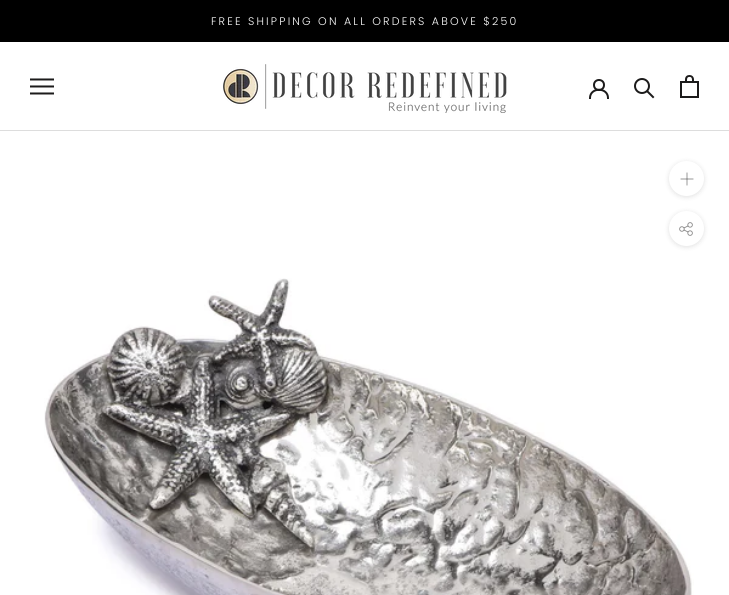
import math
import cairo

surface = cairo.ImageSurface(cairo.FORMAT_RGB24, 729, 595)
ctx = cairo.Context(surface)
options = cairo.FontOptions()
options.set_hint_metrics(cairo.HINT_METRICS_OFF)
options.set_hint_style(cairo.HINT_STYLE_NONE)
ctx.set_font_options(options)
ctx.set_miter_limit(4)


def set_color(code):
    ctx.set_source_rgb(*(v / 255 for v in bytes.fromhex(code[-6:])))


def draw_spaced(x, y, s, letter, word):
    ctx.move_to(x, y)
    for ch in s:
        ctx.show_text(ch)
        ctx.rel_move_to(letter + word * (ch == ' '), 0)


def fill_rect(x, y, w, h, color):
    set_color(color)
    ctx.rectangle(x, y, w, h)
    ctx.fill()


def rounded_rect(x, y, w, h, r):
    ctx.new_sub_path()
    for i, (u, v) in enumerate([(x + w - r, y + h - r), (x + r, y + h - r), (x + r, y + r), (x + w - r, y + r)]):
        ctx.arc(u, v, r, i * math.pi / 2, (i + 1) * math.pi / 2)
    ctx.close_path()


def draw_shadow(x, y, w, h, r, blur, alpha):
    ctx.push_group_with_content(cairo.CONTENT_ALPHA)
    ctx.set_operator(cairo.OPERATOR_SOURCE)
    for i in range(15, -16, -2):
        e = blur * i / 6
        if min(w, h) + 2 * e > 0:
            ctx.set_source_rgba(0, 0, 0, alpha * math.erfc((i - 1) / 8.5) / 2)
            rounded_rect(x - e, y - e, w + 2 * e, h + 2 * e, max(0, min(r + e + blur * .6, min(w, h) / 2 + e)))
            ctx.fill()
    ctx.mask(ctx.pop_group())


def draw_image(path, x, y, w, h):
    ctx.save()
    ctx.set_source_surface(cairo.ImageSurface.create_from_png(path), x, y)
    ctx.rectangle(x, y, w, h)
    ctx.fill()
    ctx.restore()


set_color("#ffffff")
ctx.paint()
fill_rect(0, 0, 729, 42, "#000000")
ctx.select_font_face("Poppins Light")
ctx.set_font_size(11)
set_color("#ffffff")
draw_spaced(211, 25, "FREE SHIPPING ON ALL ORDERS ABOVE $250", 2.2, 0)
fill_rect(0, 130, 729, 1, "#dddddd")
draw_image("assets/img1.png", 30, 78, 24, 17)
draw_image("assets/img2.png", 223, 64, 284, 49)
ctx.new_path()
ctx.move_to(590, 98)
ctx.curve_to(590, 87, 608, 87, 608, 98)
set_color("#1c1b1b")
ctx.set_line_cap(cairo.LINE_CAP_SQUARE)
ctx.stroke()
ctx.arc(599, 85, 5, 0, 2 * math.pi)
ctx.set_line_cap(cairo.LINE_CAP_BUTT)
ctx.stroke()
ctx.new_path()
ctx.move_to(653, 97)
ctx.line_to(647.5, 91.5)
ctx.set_line_cap(cairo.LINE_CAP_SQUARE)
ctx.stroke()
ctx.arc(642, 86, 7, 0, 2 * math.pi)
ctx.set_line_cap(cairo.LINE_CAP_BUTT)
ctx.stroke()
draw_image("assets/img3.png", 680, 75, 19, 23)
set_color("#363636")
draw_shadow(669, 162, 35, 35, 17.5, 2.5, 0.15)
set_color("#ffffff")
ctx.arc(686.5, 178.5, 17.5, 0, 2 * math.pi)
ctx.fill()
ctx.new_path()
ctx.move_to(687, 173)
ctx.line_to(687, 185)
set_color("#8e8d8d")
ctx.set_line_width(0.9)
ctx.set_line_cap(cairo.LINE_CAP_SQUARE)
ctx.stroke()
ctx.new_path()
ctx.move_to(681, 179)
ctx.line_to(693, 179)
ctx.set_source_rgba(0.11, 0.106, 0.106, 0.5)
ctx.stroke()
set_color("#363636")
draw_shadow(669, 212, 35, 35, 17.5, 2.5, 0.15)
set_color("#ffffff")
ctx.arc(686.5, 228.5, 17.5, 0, 2 * math.pi)
ctx.fill()
draw_image("assets/img4.png", 679, 222, 14, 14)
draw_image("assets/img5.png", 44, 278, 650, 317)
surface.write_to_png("output.png")
